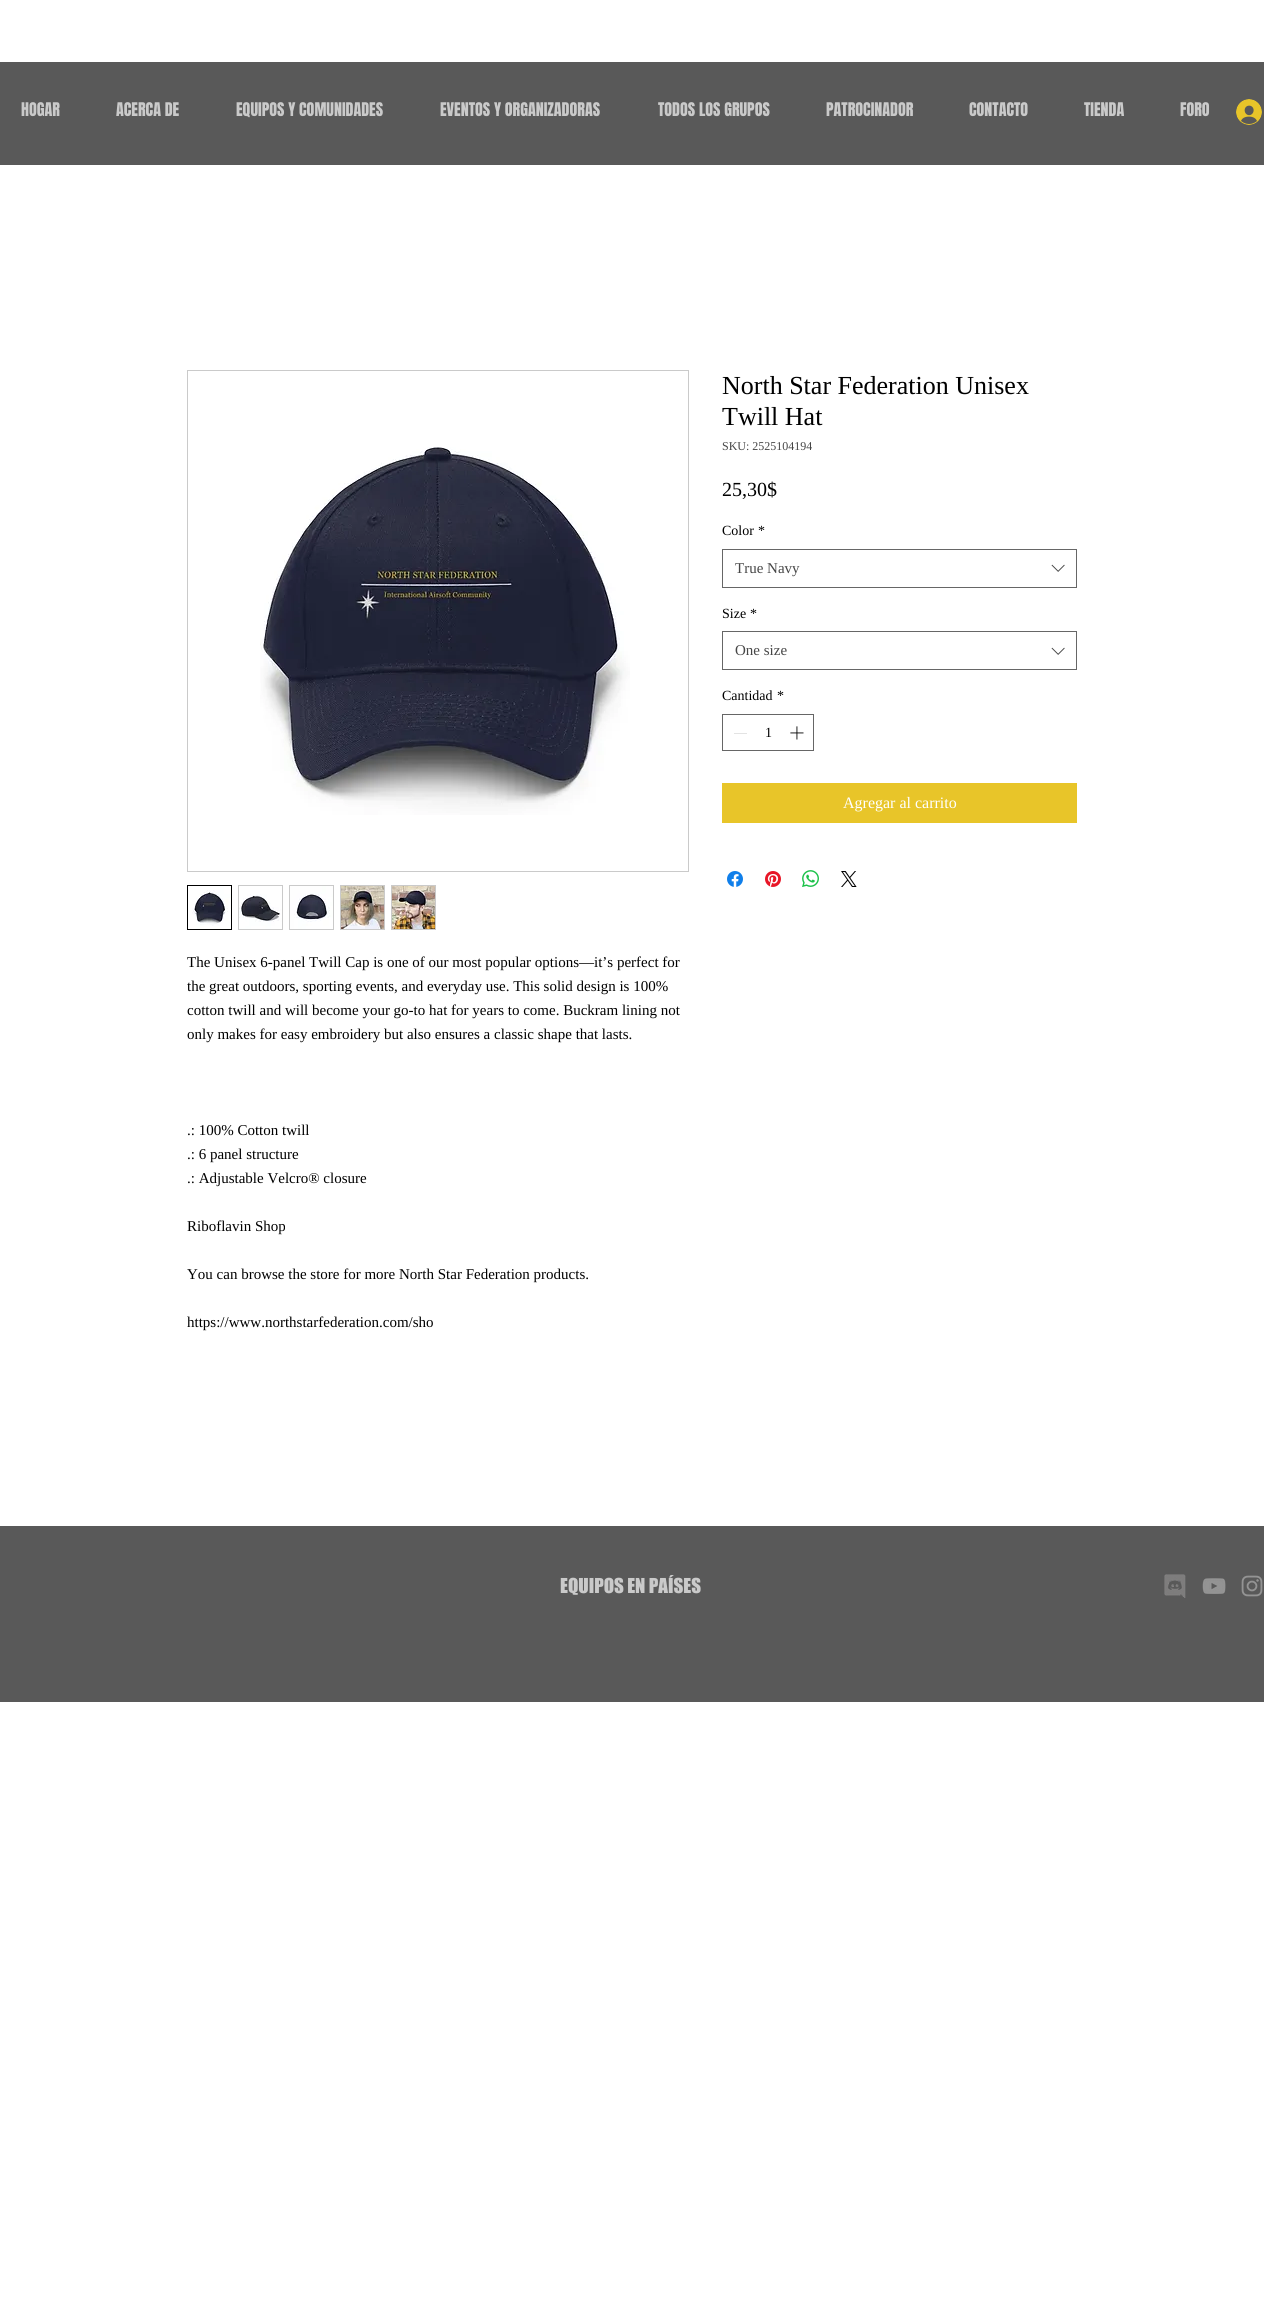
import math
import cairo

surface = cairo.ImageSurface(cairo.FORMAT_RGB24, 1264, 2324)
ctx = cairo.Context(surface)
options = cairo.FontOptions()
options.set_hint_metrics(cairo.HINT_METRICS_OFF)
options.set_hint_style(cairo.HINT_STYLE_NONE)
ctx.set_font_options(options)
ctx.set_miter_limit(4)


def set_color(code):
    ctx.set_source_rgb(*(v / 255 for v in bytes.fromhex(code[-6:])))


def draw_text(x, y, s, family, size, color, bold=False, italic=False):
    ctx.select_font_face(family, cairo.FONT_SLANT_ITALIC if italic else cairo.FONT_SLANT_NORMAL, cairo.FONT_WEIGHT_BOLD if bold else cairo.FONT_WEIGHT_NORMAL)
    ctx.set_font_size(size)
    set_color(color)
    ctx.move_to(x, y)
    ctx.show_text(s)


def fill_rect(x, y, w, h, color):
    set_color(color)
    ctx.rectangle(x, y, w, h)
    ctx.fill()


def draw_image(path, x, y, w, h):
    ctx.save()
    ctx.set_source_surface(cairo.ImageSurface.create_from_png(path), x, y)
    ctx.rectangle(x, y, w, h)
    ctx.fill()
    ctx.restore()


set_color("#ffffff")
ctx.paint()
fill_rect(0, 62, 1264, 103, "#595959")
draw_text(21, 116, "HOGAR", "Anton", 16, "#cacaca")
draw_text(116, 116, "ACERCA DE", "Anton", 16, "#cacaca")
draw_text(236, 116, "EQUIPOS Y COMUNIDADES", "Anton", 16, "#cacaca")
draw_text(440, 116, "EVENTOS Y ORGANIZADORAS", "Anton", 16, "#cacaca")
draw_text(658, 116, "TODOS LOS GRUPOS", "Anton", 16, "#cacaca")
draw_text(826, 116, "PATROCINADOR", "Anton", 16, "#cacaca")
draw_text(969, 116, "CONTACTO", "Anton", 16, "#cacaca")
draw_text(1084, 116, "TIENDA", "Anton", 16, "#cacaca")
draw_text(1180, 116, "FORO", "Anton", 16, "#cacaca")
draw_image("assets/img1.png", 1236, 99, 26, 26)
draw_text(722, 394, "North Star Federation Unisex", "Liberation Serif", 26, "#000000")
draw_text(722, 425, "Twill Hat", "Liberation Serif", 26, "#000000")
draw_text(722, 450, "SKU: 2525104194", "Liberation Serif", 12, "#464646")
draw_text(722, 496, "25,30$", "Liberation Serif", 20, "#000000")
draw_text(722, 535, "Color", "Liberation Serif", 14, "#000000")
draw_text(758, 535, "*", "Liberation Serif", 14, "#000000")
ctx.rectangle(722.5, 549.5, 354, 38)
set_color("#666666")
ctx.set_line_width(1)
ctx.stroke()
draw_text(735, 573, "True Navy", "Liberation Serif", 15, "#464646")
draw_image("assets/img2.png", 1051, 564, 14, 8)
draw_text(722, 618, "Size", "Liberation Serif", 14, "#000000")
draw_text(750, 618, "*", "Liberation Serif", 14, "#000000")
ctx.rectangle(722.5, 631.5, 354, 38)
set_color("#666666")
ctx.stroke()
draw_text(735, 655, "One size", "Liberation Serif", 15, "#464646")
draw_image("assets/img2.png", 1051, 647, 14, 8)
draw_text(722, 700, "Cantidad", "Liberation Serif", 14, "#000000")
draw_text(777, 700, "*", "Liberation Serif", 14, "#000000")
ctx.rectangle(722.5, 714.5, 91, 36)
set_color("#666666")
ctx.stroke()
fill_rect(734, 733, 13, 1, "#e3e3e3")
draw_text(765, 737, "1", "Liberation Serif", 14, "#000000")
draw_image("assets/img3.png", 790, 726, 14, 14)
fill_rect(722, 783, 355, 40, "#e8c529")
draw_text(843, 808, "Agregar al carrito", "Liberation Serif", 16, "#ffffff")
draw_image("assets/img4.png", 727, 871, 16, 16)
draw_image("assets/img5.png", 765, 871, 16, 16)
draw_image("assets/img6.png", 802, 870, 17, 17)
draw_image("assets/img7.png", 841, 871, 16, 16)
ctx.rectangle(187.5, 370.5, 501, 501)
set_color("#cacaca")
ctx.stroke()
draw_image("assets/img8.png", 260, 447, 370, 368)
ctx.rectangle(187.5, 885.5, 44, 44)
set_color("#000000")
ctx.stroke()
draw_image("assets/img9.png", 188, 886, 43, 43)
fill_rect(238, 885, 45, 45, "#cacaca")
draw_image("assets/img10.png", 239, 886, 43, 43)
fill_rect(289, 885, 45, 45, "#cacaca")
draw_image("assets/img11.png", 290, 886, 43, 43)
fill_rect(340, 885, 45, 45, "#cacaca")
draw_image("assets/img12.png", 341, 886, 43, 43)
fill_rect(391, 885, 45, 45, "#cacaca")
draw_image("assets/img13.png", 392, 886, 43, 43)
draw_text(187, 967, "The Unisex 6-panel Twill Cap is one of our most popular options—it’s perfect for", "Liberation Serif", 15, "#000000")
draw_text(187, 991, "the great outdoors, sporting events, and everyday use. This solid design is 100%", "Liberation Serif", 15, "#000000")
draw_text(187, 1015, "cotton twill and will become your go-to hat for years to come. Buckram lining not", "Liberation Serif", 15, "#000000")
draw_text(187, 1039, "only makes for easy embroidery but also ensures a classic shape that lasts.", "Liberation Serif", 15, "#000000")
draw_text(187, 1135, ".: 100% Cotton twill", "Liberation Serif", 15, "#000000")
draw_text(187, 1159, ".: 6 panel structure", "Liberation Serif", 15, "#000000")
draw_text(187, 1183, ".: Adjustable Velcro® closure", "Liberation Serif", 15, "#000000")
draw_text(187, 1231, "Riboflavin Shop", "Liberation Serif", 15, "#000000")
draw_text(187, 1279, "You can browse the store for more North Star Federation products.", "Liberation Serif", 15, "#000000")
draw_text(187, 1327, "https://www.northstarfederation.com/sho", "Liberation Serif", 15, "#000000")
fill_rect(0, 1526, 1264, 176, "#595959")
draw_text(560, 1593, "EQUIPOS EN PAÍSES", "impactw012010", 19, "#cacaca")
draw_image("assets/img14.png", 1164, 1574, 22, 24)
draw_image("assets/img15.png", 1202, 1578, 24, 16)
draw_image("assets/img16.png", 1241, 1575, 22, 22)
surface.write_to_png("output.png")
